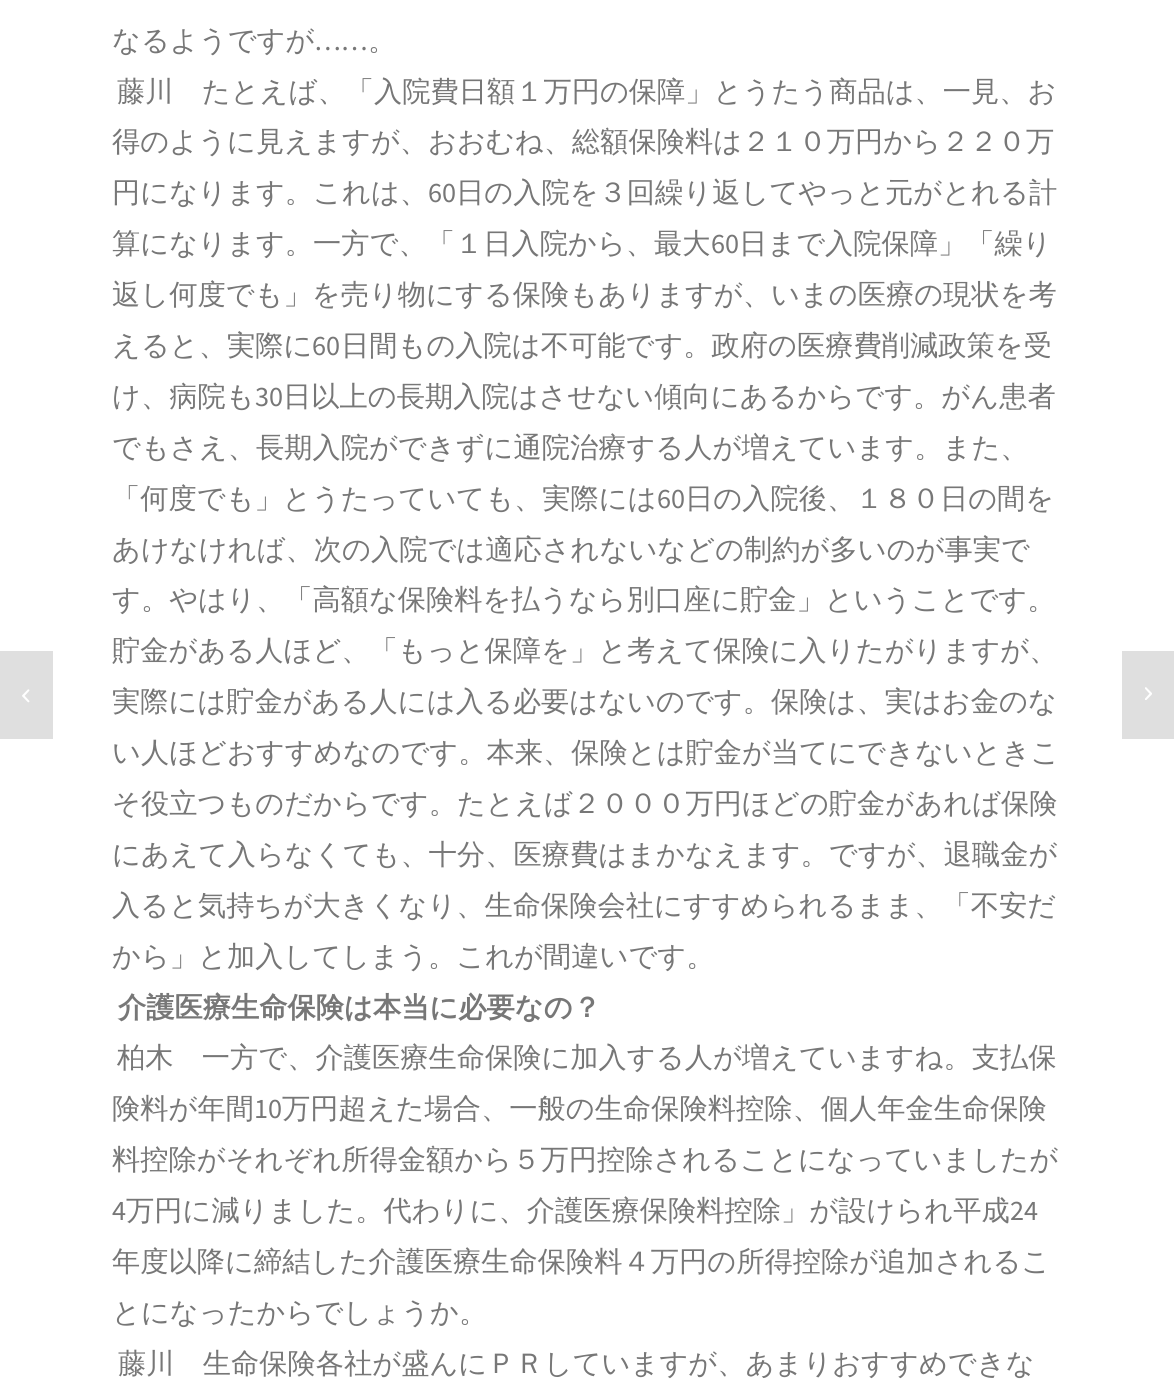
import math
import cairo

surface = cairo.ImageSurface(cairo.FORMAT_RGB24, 1174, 1388)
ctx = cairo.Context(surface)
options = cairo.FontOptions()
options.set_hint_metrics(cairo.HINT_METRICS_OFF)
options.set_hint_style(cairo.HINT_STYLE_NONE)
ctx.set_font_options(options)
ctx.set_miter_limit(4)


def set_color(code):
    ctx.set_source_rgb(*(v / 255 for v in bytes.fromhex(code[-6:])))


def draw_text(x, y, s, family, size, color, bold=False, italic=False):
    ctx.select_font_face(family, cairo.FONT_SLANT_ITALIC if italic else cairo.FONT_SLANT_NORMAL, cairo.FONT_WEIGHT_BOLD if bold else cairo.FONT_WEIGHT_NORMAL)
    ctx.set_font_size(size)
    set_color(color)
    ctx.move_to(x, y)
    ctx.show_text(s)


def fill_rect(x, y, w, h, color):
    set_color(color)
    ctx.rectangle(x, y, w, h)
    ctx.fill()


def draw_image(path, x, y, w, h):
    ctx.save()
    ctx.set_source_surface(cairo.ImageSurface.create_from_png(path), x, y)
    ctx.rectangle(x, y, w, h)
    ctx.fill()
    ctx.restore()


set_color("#ffffff")
ctx.paint()
draw_text(112, 50, "なるようですが", "WenQuanYi Zen Hei Medium", 28.25, "#777777")
draw_text(314, 50, "……", "Source Sans Pro", 28.25, "#777777")
draw_text(368, 50, "。", "WenQuanYi Zen Hei Medium", 28.25, "#777777")
draw_text(117, 101, "藤川　たとえば、「入院費日額１万円の保障」とうたう商品は、一見、お", "WenQuanYi Zen Hei Medium", 28.25, "#777777")
draw_text(112, 151, "得のように見えますが、おおむね、総額保険料は２１０万円から２２０万", "WenQuanYi Zen Hei Medium", 28.25, "#777777")
draw_text(112, 202, "円になります。これは、", "WenQuanYi Zen Hei Medium", 28.25, "#777777")
draw_text(428, 202, "60", "Source Sans Pro", 28.25, "#777777")
draw_text(456, 202, "日の入院を３回繰り返してやっと元がとれる計", "WenQuanYi Zen Hei Medium", 28.25, "#777777")
draw_text(112, 253, "算になります。一方で、「１日入院から、最大", "WenQuanYi Zen Hei Medium", 28.25, "#777777")
draw_text(711, 253, "60", "Source Sans Pro", 28.25, "#777777")
draw_text(739, 253, "日まで入院保障」「繰り", "WenQuanYi Zen Hei Medium", 28.25, "#777777")
draw_text(112, 304, "返し何度でも」を売り物にする保険もありますが、いまの医療の現状を考", "WenQuanYi Zen Hei Medium", 28.25, "#777777")
draw_text(112, 355, "えると、実際に", "WenQuanYi Zen Hei Medium", 28.25, "#777777")
draw_text(312, 355, "60", "Source Sans Pro", 28.25, "#777777")
draw_text(341, 355, "日間もの入院は不可能です。政府の医療費削減政策を受", "WenQuanYi Zen Hei Medium", 28.25, "#777777")
draw_text(112, 406, "け、病院も", "WenQuanYi Zen Hei Medium", 28.25, "#777777")
draw_text(255, 406, "30", "Source Sans Pro", 28.25, "#777777")
draw_text(283, 406, "日以上の長期入院はさせない傾向にあるからです。がん患者", "WenQuanYi Zen Hei Medium", 28.25, "#777777")
draw_text(112, 457, "でもさえ、長期入院ができずに通院治療する人が増えています。また、", "WenQuanYi Zen Hei Medium", 28.25, "#777777")
draw_text(112, 508, "「何度でも」とうたっていても、実際には", "WenQuanYi Zen Hei Medium", 28.25, "#777777")
draw_text(657, 508, "60", "Source Sans Pro", 28.25, "#777777")
draw_text(685, 508, "日の入院後、１８０日の間を", "WenQuanYi Zen Hei Medium", 28.25, "#777777")
draw_text(112, 559, "あけなければ、次の入院では適応されないなどの制約が多いのが事実で", "WenQuanYi Zen Hei Medium", 28.25, "#777777")
draw_text(112, 609, "す。やはり、「高額な保険料を払うなら別口座に貯金」ということです。", "WenQuanYi Zen Hei Medium", 28.25, "#777777")
draw_text(112, 660, "貯金がある人ほど、「もっと保障を」と考えて保険に入りたがりますが、", "WenQuanYi Zen Hei Medium", 28.25, "#777777")
draw_text(112, 711, "実際には貯金がある人には入る必要はないのです。保険は、実はお金のな", "WenQuanYi Zen Hei Medium", 28.25, "#777777")
draw_text(112, 762, "い人ほどおすすめなのです。本来、保険とは貯金が当てにできないときこ", "WenQuanYi Zen Hei Medium", 28.25, "#777777")
draw_text(112, 813, "そ役立つものだからです。たとえば２０００万円ほどの貯金があれば保険", "WenQuanYi Zen Hei Medium", 28.25, "#777777")
draw_text(112, 864, "にあえて入らなくても、十分、医療費はまかなえます。ですが、退職金が", "WenQuanYi Zen Hei Medium", 28.25, "#777777")
draw_text(112, 915, "入ると気持ちが大きくなり、生命保険会社にすすめられるまま、「不安だ", "WenQuanYi Zen Hei Medium", 28.25, "#777777")
draw_text(112, 966, "から」と加入してしまう。これが間違いです。", "WenQuanYi Zen Hei Medium", 28.25, "#777777")
draw_text(118, 1017, "介護医療生命保険は本当に必要なの？", "WenQuanYi Zen Hei", 28.25, "#777777", bold=True)
draw_text(117, 1067, "柏木　一方で、介護医療生命保険に加入する人が増えていますね。支払保", "WenQuanYi Zen Hei Medium", 28.25, "#777777")
draw_text(112, 1118, "険料が年間", "WenQuanYi Zen Hei Medium", 28.25, "#777777")
draw_text(254, 1118, "10", "Source Sans Pro", 28.25, "#777777")
draw_text(282, 1118, "万円超えた場合、一般の生命保険料控除、個人年金生命保険", "WenQuanYi Zen Hei Medium", 28.25, "#777777")
draw_text(112, 1169, "料控除がそれぞれ所得金額から５万円控除されることになっていましたが", "WenQuanYi Zen Hei Medium", 28.25, "#777777")
draw_text(112, 1220, "4", "Source Sans Pro", 28.25, "#777777")
draw_text(126, 1220, "万円に減りました。代わりに、介護医療保険料控除」が設けられ平成", "WenQuanYi Zen Hei Medium", 28.25, "#777777")
draw_text(1010, 1220, "24", "Source Sans Pro", 28.25, "#777777")
draw_text(112, 1271, "年度以降に締結した介護医療生命保険料４万円の所得控除が追加されるこ", "WenQuanYi Zen Hei Medium", 28.25, "#777777")
draw_text(112, 1322, "とになったからでしょうか。", "WenQuanYi Zen Hei Medium", 28.25, "#777777")
draw_text(118, 1373, "藤川　生命保険各社が盛んにＰＲしていますが、あまりおすすめできな", "WenQuanYi Zen Hei Medium", 28.25, "#777777")
fill_rect(0, 651, 53, 88, "#dfdfdf")
draw_image("assets/img1.png", 22, 689, 8, 14)
fill_rect(1122, 651, 52, 88, "#dfdfdf")
draw_image("assets/img2.png", 1145, 687, 7, 13)
surface.write_to_png("output.png")
